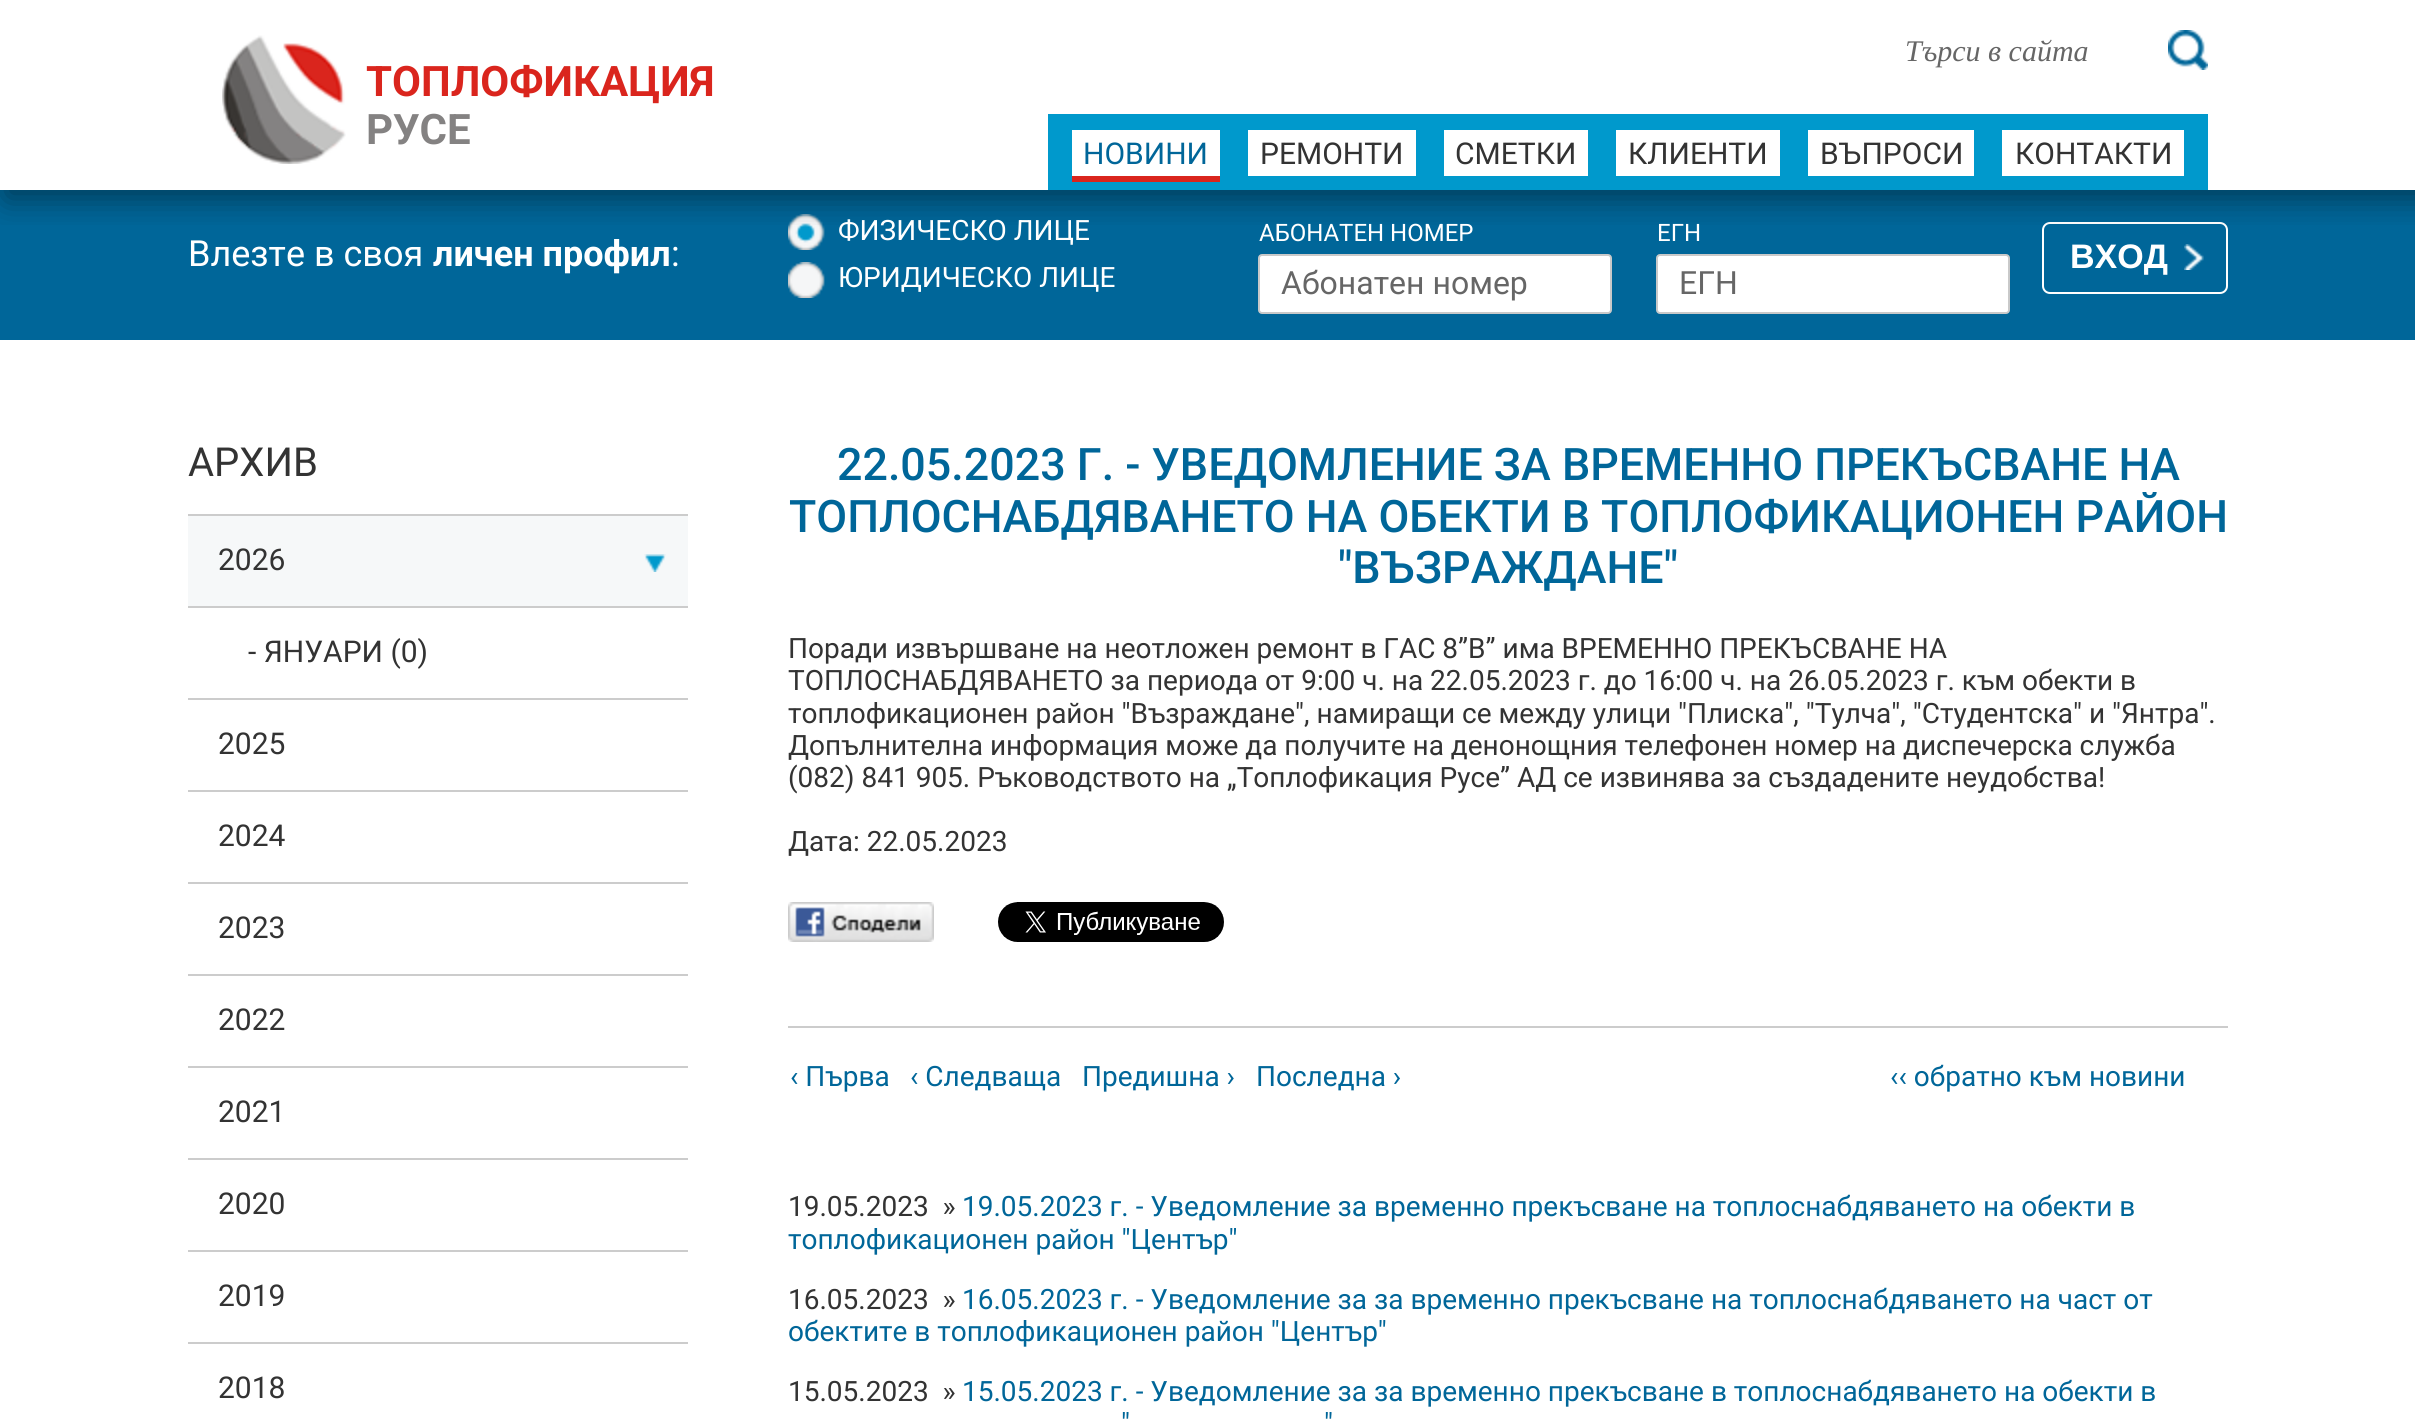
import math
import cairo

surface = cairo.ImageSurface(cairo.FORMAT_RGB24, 2415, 1427)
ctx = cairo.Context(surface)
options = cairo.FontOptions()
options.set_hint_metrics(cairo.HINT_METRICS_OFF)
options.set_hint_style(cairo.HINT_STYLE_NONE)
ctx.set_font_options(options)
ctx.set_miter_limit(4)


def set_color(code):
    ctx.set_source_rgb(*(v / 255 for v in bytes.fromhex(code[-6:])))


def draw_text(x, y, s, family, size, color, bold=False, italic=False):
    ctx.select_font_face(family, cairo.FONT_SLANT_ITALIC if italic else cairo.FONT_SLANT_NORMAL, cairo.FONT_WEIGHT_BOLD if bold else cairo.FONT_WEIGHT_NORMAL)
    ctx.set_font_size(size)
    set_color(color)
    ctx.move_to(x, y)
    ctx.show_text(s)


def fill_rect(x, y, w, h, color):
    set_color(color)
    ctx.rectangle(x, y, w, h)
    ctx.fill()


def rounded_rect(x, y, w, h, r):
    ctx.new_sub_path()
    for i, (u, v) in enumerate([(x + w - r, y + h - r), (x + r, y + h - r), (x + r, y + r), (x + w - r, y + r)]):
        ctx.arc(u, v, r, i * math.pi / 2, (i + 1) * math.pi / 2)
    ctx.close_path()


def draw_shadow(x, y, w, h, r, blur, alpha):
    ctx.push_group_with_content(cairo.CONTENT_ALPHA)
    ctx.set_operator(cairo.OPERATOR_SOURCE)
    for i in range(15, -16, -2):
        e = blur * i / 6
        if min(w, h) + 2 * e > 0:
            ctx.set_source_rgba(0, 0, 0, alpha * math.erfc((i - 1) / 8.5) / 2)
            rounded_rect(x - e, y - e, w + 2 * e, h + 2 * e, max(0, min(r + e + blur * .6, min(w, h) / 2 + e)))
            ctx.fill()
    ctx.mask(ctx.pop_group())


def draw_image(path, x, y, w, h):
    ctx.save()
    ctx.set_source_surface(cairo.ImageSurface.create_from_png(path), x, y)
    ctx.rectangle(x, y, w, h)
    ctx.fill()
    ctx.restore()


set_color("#ffffff")
ctx.paint()
fill_rect(0, 190, 2415, 150, "#006699")
draw_image("assets/img3.png", 788, 214, 37, 36)
rounded_rect(2043, 223, 184, 70, 7)
set_color("#ffffff")
ctx.stroke()
draw_image("assets/img5.png", 2184, 244, 20, 26)
ctx.save()
ctx.rectangle(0, 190, 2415, 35)
ctx.clip()
set_color("#000000")
draw_shadow(6, 8, 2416, 190, 0, 16, 0.44)
ctx.restore()
draw_text(1905, 61, "Търси в сайта", "Liberation Serif", 30, "#666666", italic=True)
draw_image("assets/img1.png", 2168, 30, 40, 40)
draw_image("assets/img2.png", 222, 35, 124, 129)
draw_text(366, 96, "ТОПЛОФИКАЦИЯ", "Roboto", 42, "#da251d", bold=True)
draw_text(366, 144, "РУСЕ", "Roboto", 42, "#848282", bold=True)
fill_rect(1048, 114, 1160, 76, "#0099cc")
fill_rect(1072, 130, 148, 46, "#ffffff")
fill_rect(1072, 176, 148, 6, "#da251d")
draw_text(1083, 164, "НОВИНИ", "Roboto", 30, "#006699")
fill_rect(1248, 130, 168, 46, "#ffffff")
draw_text(1260, 164, "РЕМОНТИ", "Roboto", 30, "#333333")
fill_rect(1444, 130, 144, 46, "#ffffff")
draw_text(1455, 164, "СМЕТКИ", "Roboto", 30, "#333333")
fill_rect(1616, 130, 164, 46, "#ffffff")
draw_text(1628, 164, "КЛИЕНТИ", "Roboto", 30, "#333333")
fill_rect(1808, 130, 166, 46, "#ffffff")
draw_text(1820, 164, "ВЪПРОСИ", "Roboto", 30, "#333333")
fill_rect(2002, 130, 182, 46, "#ffffff")
draw_text(2015, 164, "КОНТАКТИ", "Roboto", 30, "#333333")
draw_text(188, 266, "Влезте в своя", "Roboto", 36, "#ffffff")
draw_text(433, 266, "личен профил", "Roboto", 36, "#ffffff", bold=True)
draw_text(671, 266, ":", "Roboto", 36, "#ffffff")
draw_text(838, 240, "ФИЗИЧЕСКО ЛИЦЕ", "Roboto", 28, "#ffffff")
draw_image("assets/img4.png", 788, 262, 37, 36)
draw_text(838, 287, "ЮРИДИЧЕСКО ЛИЦЕ", "Roboto", 28, "#ffffff")
draw_text(1259, 241, "АБОНАТЕН НОМЕР", "Roboto", 24, "#ffffff")
rounded_rect(1259, 255, 352, 58, 3)
ctx.fill_preserve()
set_color("#c9c9c9")
ctx.stroke()
draw_text(1281, 294, "Абонатен номер", "Roboto", 32, "#666666")
draw_text(1657, 241, "ЕГН", "Roboto", 24, "#ffffff")
rounded_rect(1657, 255, 352, 58, 3)
ctx.fill_preserve()
set_color("#c9c9c9")
ctx.stroke()
draw_text(1679, 294, "ЕГН", "Roboto", 32, "#666666")
draw_text(2070, 268, "ВХОД", "Liberation Sans", 34, "#ffffff", bold=True)
draw_text(188, 476, "АРХИВ", "Roboto", 40, "#333333")
fill_rect(188, 514, 500, 2, "#cccccc")
fill_rect(188, 516, 500, 90, "#f6f8f9")
fill_rect(188, 606, 500, 2, "#cccccc")
draw_text(218, 570, "2026", "Roboto", 30, "#333333")
draw_image("assets/img6.png", 644, 554, 22, 18)
fill_rect(188, 698, 500, 2, "#cccccc")
draw_text(248, 662, "- ЯНУАРИ (0)", "Roboto", 30, "#333333")
fill_rect(188, 790, 500, 2, "#cccccc")
draw_text(218, 754, "2025", "Roboto", 30, "#333333")
fill_rect(188, 882, 500, 2, "#cccccc")
draw_text(218, 846, "2024", "Roboto", 30, "#333333")
fill_rect(188, 974, 500, 2, "#cccccc")
draw_text(218, 938, "2023", "Roboto", 30, "#333333")
fill_rect(188, 1066, 500, 2, "#cccccc")
draw_text(218, 1030, "2022", "Roboto", 30, "#333333")
fill_rect(188, 1158, 500, 2, "#cccccc")
draw_text(218, 1122, "2021", "Roboto", 30, "#333333")
fill_rect(188, 1250, 500, 2, "#cccccc")
draw_text(218, 1214, "2020", "Roboto", 30, "#333333")
fill_rect(188, 1342, 500, 2, "#cccccc")
draw_text(218, 1306, "2019", "Roboto", 30, "#333333")
draw_text(218, 1398, "2018", "Roboto", 30, "#333333")
draw_text(837, 480, "22.05.2023 Г. - УВЕДОМЛЕНИЕ ЗА ВРЕМЕННО ПРЕКЪСВАНЕ НА", "Roboto Medium", 44.8, "#006699")
draw_text(789, 532, "ТОПЛОСНАБДЯВАНЕТО НА ОБЕКТИ В ТОПЛОФИКАЦИОНЕН РАЙОН", "Roboto Medium", 44.8, "#006699")
draw_text(1338, 583, "\"ВЪЗРАЖДАНЕ\"", "Roboto Medium", 44.8, "#006699")
draw_text(788, 658, "Поради извършване на неотложен ремонт в ГАС 8”В” има ВРЕМЕННО ПРЕКЪСВАНЕ НА", "Roboto", 28, "#333333")
draw_text(788, 690, "ТОПЛОСНАБДЯВАНЕТО за периода от 9:00 ч. на 22.05.2023 г. до 16:00 ч. на 26.05.2023 г. към обекти в", "Roboto", 28, "#333333")
draw_text(788, 723, "топлофикационен район \"Възраждане\", намиращи се между улици \"Плиска\", \"Тулча\", \"Студентска\" и \"Янтра\".", "Roboto", 28, "#333333")
draw_text(788, 755, "Допълнителна информация може да получите на денонощния телефонен номер на диспечерска служба", "Roboto", 28, "#333333")
draw_text(788, 787, "(082) 841 905. Ръководството на „Топлофикация Русе” АД се извинява за създадените неудобства!", "Roboto", 28, "#333333")
draw_text(788, 851, "Дата: 22.05.2023", "Roboto", 28, "#333333")
draw_image("assets/img7.png", 788, 902, 146, 40)
draw_image("assets/img8.png", 998, 902, 226, 40)
fill_rect(788, 1026, 1440, 2, "#cccccc")
draw_text(790, 1086, "‹ Първа", "Roboto", 28, "#006699")
draw_text(910, 1086, "‹ Следваща", "Roboto", 28, "#006699")
draw_text(1082, 1086, "Предишна ›", "Roboto", 28, "#006699")
draw_text(1256, 1086, "Последна ›", "Roboto", 28, "#006699")
draw_text(1890, 1086, "‹‹ обратно към новини", "Roboto", 28, "#006699")
draw_text(788, 1216, "19.05.2023  »", "Roboto", 28, "#333333")
draw_text(962, 1216, "19.05.2023 г. - Уведомление за временно прекъсване на топлоснабдяването на обекти в", "Roboto", 28, "#006699")
draw_text(788, 1249, "топлофикационен район \"Център\"", "Roboto", 28, "#006699")
draw_text(788, 1309, "16.05.2023  »", "Roboto", 28, "#333333")
draw_text(962, 1309, "16.05.2023 г. - Уведомление за за временно прекъсване на топлоснабдяването на част от", "Roboto", 28, "#006699")
draw_text(788, 1341, "обектите в топлофикационен район \"Център\"", "Roboto", 28, "#006699")
draw_text(788, 1401, "15.05.2023  »", "Roboto", 28, "#333333")
draw_text(962, 1401, "15.05.2023 г. - Уведомление за за временно прекъсване в топлоснабдяването на обекти в", "Roboto", 28, "#006699")
draw_text(1121, 1433, "\"", "Roboto", 28, "#006699")
draw_text(1324, 1433, "\"", "Roboto", 28, "#006699")
surface.write_to_png("output.png")
